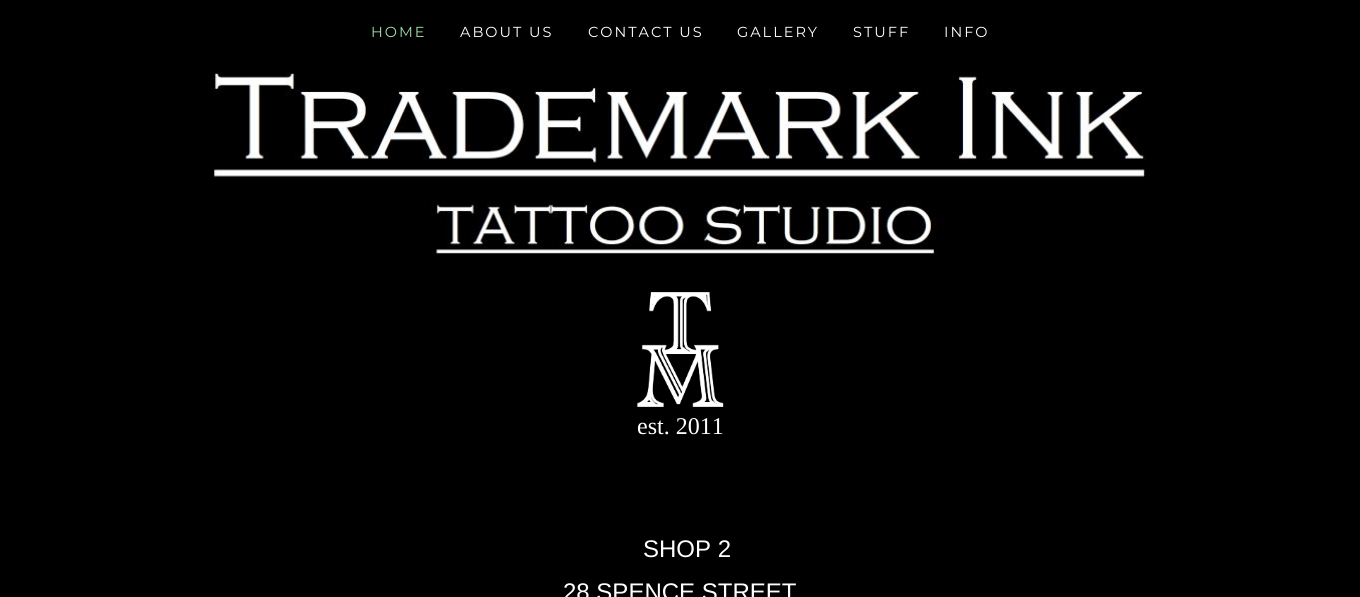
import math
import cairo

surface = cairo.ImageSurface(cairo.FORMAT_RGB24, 1360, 597)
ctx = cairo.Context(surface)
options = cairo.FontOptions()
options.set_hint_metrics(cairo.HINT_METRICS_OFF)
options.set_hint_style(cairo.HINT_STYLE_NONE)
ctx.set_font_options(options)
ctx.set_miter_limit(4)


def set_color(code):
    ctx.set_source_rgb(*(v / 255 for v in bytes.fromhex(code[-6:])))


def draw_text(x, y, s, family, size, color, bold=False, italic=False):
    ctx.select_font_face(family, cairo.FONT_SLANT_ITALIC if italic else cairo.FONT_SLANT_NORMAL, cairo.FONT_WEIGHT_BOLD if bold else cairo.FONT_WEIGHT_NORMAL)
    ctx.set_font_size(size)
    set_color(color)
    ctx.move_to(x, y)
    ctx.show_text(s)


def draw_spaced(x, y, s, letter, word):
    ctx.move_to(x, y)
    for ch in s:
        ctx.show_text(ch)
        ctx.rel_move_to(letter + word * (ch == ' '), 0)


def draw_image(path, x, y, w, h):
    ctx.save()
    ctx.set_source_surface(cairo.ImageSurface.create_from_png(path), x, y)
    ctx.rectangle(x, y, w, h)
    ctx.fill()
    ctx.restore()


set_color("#000000")
ctx.paint()
ctx.select_font_face("Montserrat")
ctx.set_font_size(14.5)
set_color("#a2deab")
draw_spaced(371, 37, "HOME", 2, 0)
set_color("#ffffff")
draw_spaced(460, 37, "ABOUT US", 2, 0)
draw_spaced(588, 37, "CONTACT US", 2, 0)
draw_spaced(737, 37, "GALLERY", 2, 0)
draw_spaced(853, 37, "STUFF", 2, 0)
draw_spaced(944, 37, "INFO", 2, 0)
draw_image("assets/img1.png", 213, 72, 933, 185)
draw_image("assets/img2.png", 636, 292, 88, 115)
draw_text(637, 434, "est. 2011", "Liberation Serif", 24, "#ffffff")
draw_text(643, 557, "SHOP 2", "Liberation Sans", 24, "#ffffff")
draw_text(563, 600, "28 SPENCE STREET", "Liberation Sans", 24, "#ffffff")
surface.write_to_png("output.png")
